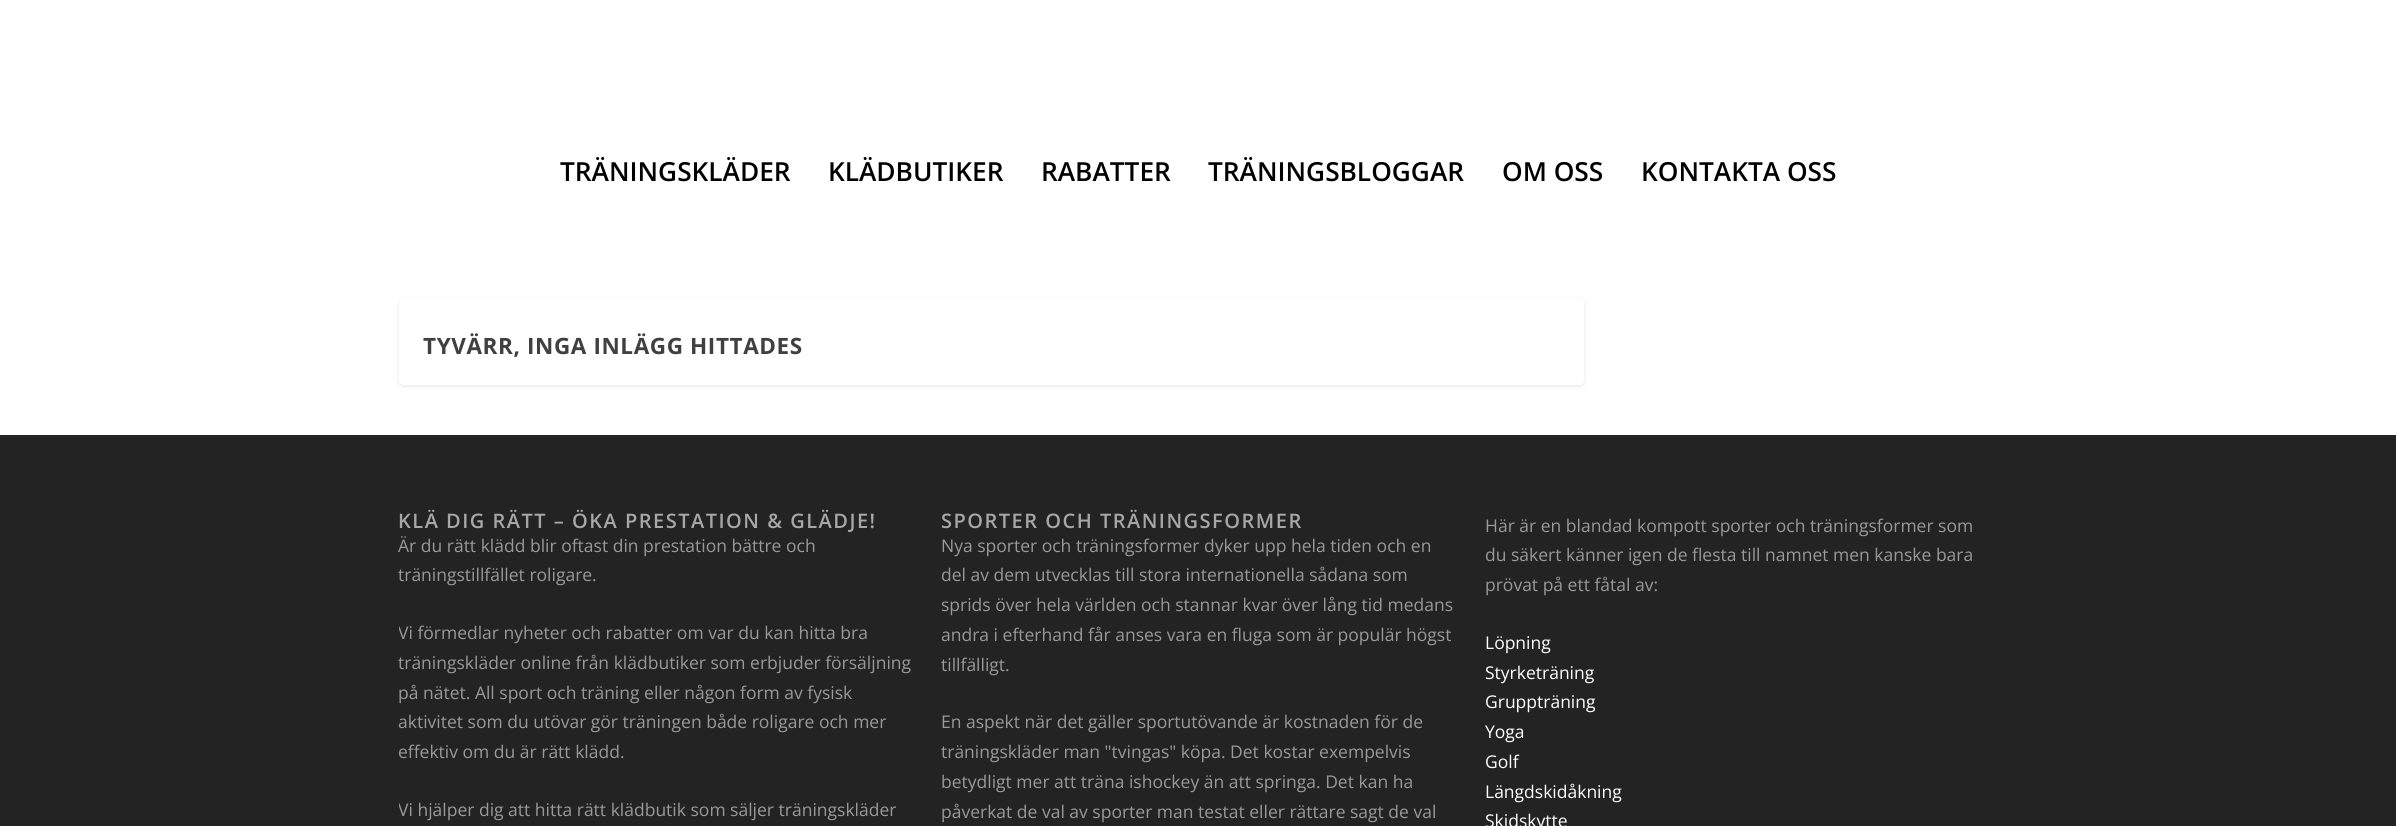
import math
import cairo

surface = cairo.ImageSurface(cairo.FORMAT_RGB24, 2396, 826)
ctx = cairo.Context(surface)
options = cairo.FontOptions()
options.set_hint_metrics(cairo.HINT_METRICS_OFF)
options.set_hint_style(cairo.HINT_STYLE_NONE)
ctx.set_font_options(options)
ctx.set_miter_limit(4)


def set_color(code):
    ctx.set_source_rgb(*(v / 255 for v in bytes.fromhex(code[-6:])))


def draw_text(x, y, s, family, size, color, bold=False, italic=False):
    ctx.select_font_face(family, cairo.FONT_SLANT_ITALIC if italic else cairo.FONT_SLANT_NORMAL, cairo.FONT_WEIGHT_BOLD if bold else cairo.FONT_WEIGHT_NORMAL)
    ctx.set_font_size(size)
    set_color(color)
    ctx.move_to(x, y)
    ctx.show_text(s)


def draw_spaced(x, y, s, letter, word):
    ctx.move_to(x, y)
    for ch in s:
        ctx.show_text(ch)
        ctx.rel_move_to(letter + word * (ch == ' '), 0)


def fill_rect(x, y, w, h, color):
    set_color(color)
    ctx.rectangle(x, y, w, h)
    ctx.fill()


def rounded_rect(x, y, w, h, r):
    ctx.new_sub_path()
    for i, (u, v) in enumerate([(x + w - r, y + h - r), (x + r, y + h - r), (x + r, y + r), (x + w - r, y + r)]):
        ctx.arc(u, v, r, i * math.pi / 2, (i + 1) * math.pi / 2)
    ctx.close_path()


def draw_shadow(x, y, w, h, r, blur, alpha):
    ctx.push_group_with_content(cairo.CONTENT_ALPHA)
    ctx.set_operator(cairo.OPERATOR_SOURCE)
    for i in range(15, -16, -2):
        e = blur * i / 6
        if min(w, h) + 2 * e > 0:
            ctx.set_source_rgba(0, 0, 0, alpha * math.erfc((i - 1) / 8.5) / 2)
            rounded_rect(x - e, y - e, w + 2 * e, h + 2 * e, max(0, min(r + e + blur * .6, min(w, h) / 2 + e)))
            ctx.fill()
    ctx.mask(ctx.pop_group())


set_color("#ffffff")
ctx.paint()
draw_text(560, 181, "TRÄNINGSKLÄDER", "Open Sans SemiBold", 26.25, "#000000")
draw_text(828, 181, "KLÄDBUTIKER", "Open Sans SemiBold", 26.25, "#000000")
draw_text(1041, 181, "RABATTER", "Open Sans SemiBold", 26.25, "#000000")
draw_text(1208, 181, "TRÄNINGSBLOGGAR", "Open Sans SemiBold", 26.25, "#000000")
draw_text(1502, 181, "OM OSS", "Open Sans SemiBold", 26.25, "#000000")
draw_text(1641, 181, "KONTAKTA OSS", "Open Sans SemiBold", 26.25, "#000000")
set_color("#000000")
draw_shadow(399, 300, 1185, 86, 4, 2, 0.1)
set_color("#ffffff")
rounded_rect(399, 299, 1185, 86, 4)
ctx.fill()
ctx.select_font_face("Open Sans", cairo.FONT_SLANT_NORMAL, cairo.FONT_WEIGHT_BOLD)
ctx.set_font_size(22.5)
set_color("#404040")
draw_spaced(423, 354, "TYVÄRR, INGA INLÄGG HITTADES", 0.6, 0)
fill_rect(0, 435, 2396, 391, "#232323")
ctx.select_font_face("Open Sans SemiBold")
ctx.set_font_size(20)
set_color("#a7a7a7")
draw_spaced(398, 528, "KLÄ DIG RÄTT – ÖKA PRESTATION & GLÄDJE!", 1.5, 0)
draw_text(398, 552, "Är du rätt klädd blir oftast din prestation bättre och", "Open Sans", 17.5, "#999999")
draw_text(398, 581, "träningstillfället roligare.", "Open Sans", 17.5, "#999999")
ctx.save()
rounded_rect(399, 435, 512, 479, 4)
ctx.clip()
draw_text(398, 639, "Vi förmedlar nyheter och rabatter om var du kan hitta bra", "Open Sans", 17.5, "#999999")
ctx.restore()
draw_text(398, 669, "träningskläder online från klädbutiker som erbjuder försäljning", "Open Sans", 17.5, "#999999")
draw_text(398, 699, "på nätet. All sport och träning eller någon form av fysisk", "Open Sans", 17.5, "#999999")
draw_text(398, 728, "aktivitet som du utövar gör träningen både roligare och mer", "Open Sans", 17.5, "#999999")
draw_text(398, 758, "effektiv om du är rätt klädd.", "Open Sans", 17.5, "#999999")
ctx.save()
rounded_rect(399, 435, 512, 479, 4)
ctx.clip()
draw_text(398, 816, "Vi hjälper dig att hitta rätt klädbutik som säljer träningskläder", "Open Sans", 17.5, "#999999")
ctx.restore()
ctx.select_font_face("Open Sans SemiBold")
ctx.set_font_size(20)
set_color("#a7a7a7")
draw_spaced(941, 528, "SPORTER OCH TRÄNINGSFORMER", 1.5, 0)
draw_text(941, 552, "Nya sporter och träningsformer dyker upp hela tiden och en", "Open Sans", 17.5, "#999999")
draw_text(941, 581, "del av dem utvecklas till stora internationella sådana som", "Open Sans", 17.5, "#999999")
draw_text(941, 611, "sprids över hela världen och stannar kvar över lång tid medans", "Open Sans", 17.5, "#999999")
draw_text(941, 641, "andra i efterhand får anses vara en fluga som är populär högst", "Open Sans", 17.5, "#999999")
draw_text(941, 671, "tillfälligt.", "Open Sans", 17.5, "#999999")
draw_text(941, 728, "En aspekt när det gäller sportutövande är kostnaden för de", "Open Sans", 17.5, "#999999")
draw_text(941, 758, "träningskläder man \"tvingas\" köpa. Det kostar exempelvis", "Open Sans", 17.5, "#999999")
draw_text(941, 788, "betydligt mer att träna ishockey än att springa. Det kan ha", "Open Sans", 17.5, "#999999")
draw_text(941, 818, "påverkat de val av sporter man testat eller rättare sagt de val", "Open Sans", 17.5, "#999999")
draw_text(1485, 532, "Här är en blandad kompott sporter och träningsformer som", "Open Sans", 17.5, "#999999")
draw_text(1485, 561, "du säkert känner igen de flesta till namnet men kanske bara", "Open Sans", 17.5, "#999999")
draw_text(1485, 591, "prövat på ett fåtal av:", "Open Sans", 17.5, "#999999")
draw_text(1485, 649, "Löpning", "Open Sans", 17.5, "#ffffff")
draw_text(1485, 679, "Styrketräning", "Open Sans", 17.5, "#ffffff")
draw_text(1485, 708, "Gruppträning", "Open Sans", 17.5, "#ffffff")
draw_text(1485, 738, "Yoga", "Open Sans", 17.5, "#ffffff")
draw_text(1485, 768, "Golf", "Open Sans", 17.5, "#ffffff")
draw_text(1485, 798, "Längdskidåkning", "Open Sans", 17.5, "#ffffff")
draw_text(1485, 827, "Skidskytte", "Open Sans", 17.5, "#ffffff")
surface.write_to_png("output.png")
